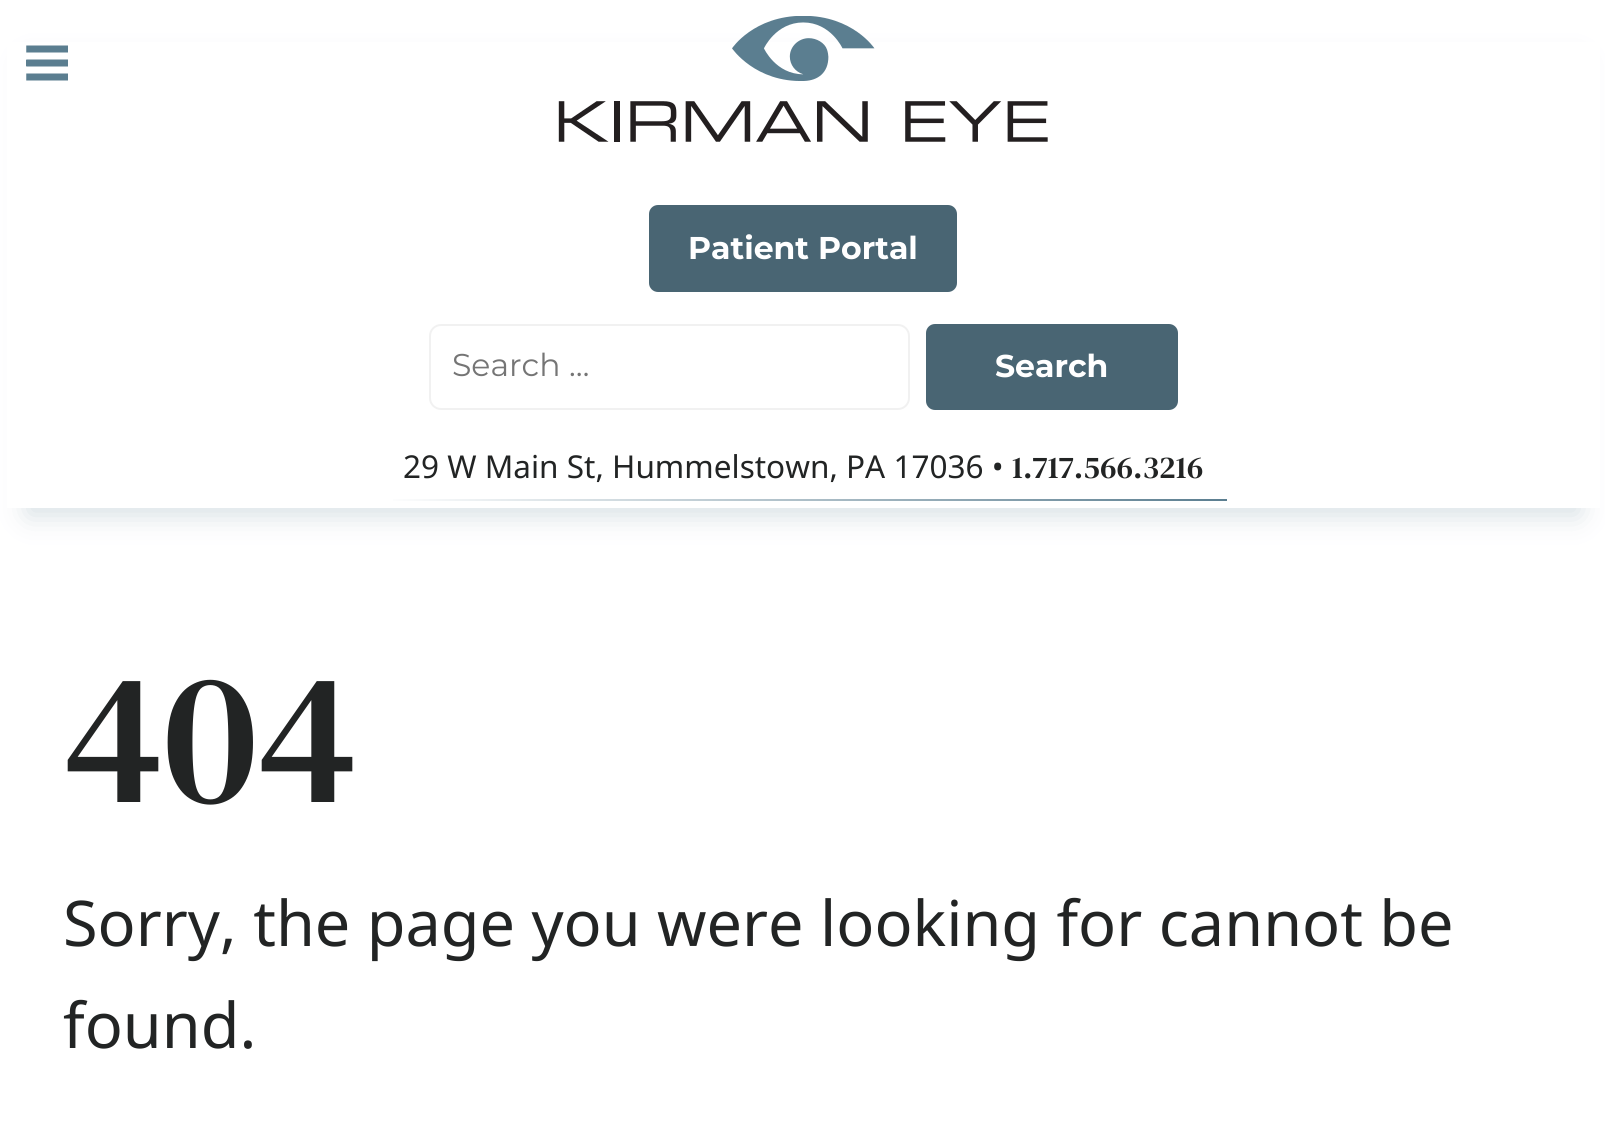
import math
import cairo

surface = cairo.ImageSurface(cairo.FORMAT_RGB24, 1605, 1136)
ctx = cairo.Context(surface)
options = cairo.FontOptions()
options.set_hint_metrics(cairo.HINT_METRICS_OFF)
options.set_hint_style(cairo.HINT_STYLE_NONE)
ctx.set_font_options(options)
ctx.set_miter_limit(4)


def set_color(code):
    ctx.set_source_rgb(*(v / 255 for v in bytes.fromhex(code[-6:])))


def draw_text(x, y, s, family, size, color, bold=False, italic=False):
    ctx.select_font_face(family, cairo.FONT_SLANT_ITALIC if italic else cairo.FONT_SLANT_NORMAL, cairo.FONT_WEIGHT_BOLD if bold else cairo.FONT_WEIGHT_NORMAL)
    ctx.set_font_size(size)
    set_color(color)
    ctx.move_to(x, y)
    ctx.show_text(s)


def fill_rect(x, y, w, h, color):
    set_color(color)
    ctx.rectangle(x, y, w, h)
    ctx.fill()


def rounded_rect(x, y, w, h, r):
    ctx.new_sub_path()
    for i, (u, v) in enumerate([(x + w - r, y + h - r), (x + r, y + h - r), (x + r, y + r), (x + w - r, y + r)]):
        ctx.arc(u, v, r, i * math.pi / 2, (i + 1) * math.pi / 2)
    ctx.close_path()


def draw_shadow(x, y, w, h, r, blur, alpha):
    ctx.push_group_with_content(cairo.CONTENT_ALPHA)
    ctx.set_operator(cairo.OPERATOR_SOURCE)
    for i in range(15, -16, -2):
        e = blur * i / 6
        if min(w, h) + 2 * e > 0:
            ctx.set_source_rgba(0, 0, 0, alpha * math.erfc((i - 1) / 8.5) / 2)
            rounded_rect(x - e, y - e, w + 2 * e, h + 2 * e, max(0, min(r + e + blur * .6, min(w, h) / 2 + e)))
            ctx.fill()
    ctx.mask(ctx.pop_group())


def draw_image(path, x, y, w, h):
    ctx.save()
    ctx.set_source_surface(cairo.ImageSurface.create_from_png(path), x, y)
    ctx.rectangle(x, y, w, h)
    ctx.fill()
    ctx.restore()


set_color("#ffffff")
ctx.paint()
set_color("#5b7e90")
draw_shadow(28, 63, 1551, 452, 0, 14, 0.25)
fill_rect(7, 42, 1593, 466, "#ffffff")
draw_image("assets/img1.png", 26, 45, 42, 36)
draw_image("assets/img2.png", 558, 16, 490, 126)
set_color("#496573")
rounded_rect(649, 205, 308, 87, 9)
ctx.fill()
draw_text(688, 259, "Patient Portal", "Montserrat", 31.5, "#ffffff", bold=True)
rounded_rect(430, 325, 479, 84, 11)
set_color("#f1f1f1")
ctx.stroke()
draw_text(452, 376, "Search …", "Montserrat", 31.5, "#757575")
set_color("#496573")
rounded_rect(926, 324, 252, 86, 9)
ctx.fill()
draw_text(995, 377, "Search", "Montserrat", 31.5, "#ffffff", bold=True)
draw_text(403, 478, "29 W Main St, Hummelstown, PA 17036 •", "Noto Sans", 31.5, "#222424")
draw_text(1012, 478, "1.717.566.3216", "DM Serif Text", 31.5, "#222424")
gradient = cairo.LinearGradient(380, 500, 1227, 500)
gradient.add_color_stop_rgba(0, 1, 1, 1, 1)
gradient.add_color_stop_rgba(1, 0.357, 0.494, 0.565, 1)
ctx.set_source(gradient)
ctx.rectangle(393, 499, 834, 2)
ctx.fill()
draw_text(63, 802, "404", "DM Serif Text", 188, "#222424")
draw_text(63, 946, "Sorry, the page you were looking for cannot be", "Noto Sans", 63, "#222424")
draw_text(63, 1048, "found.", "Noto Sans", 63, "#222424")
surface.write_to_png("output.png")
